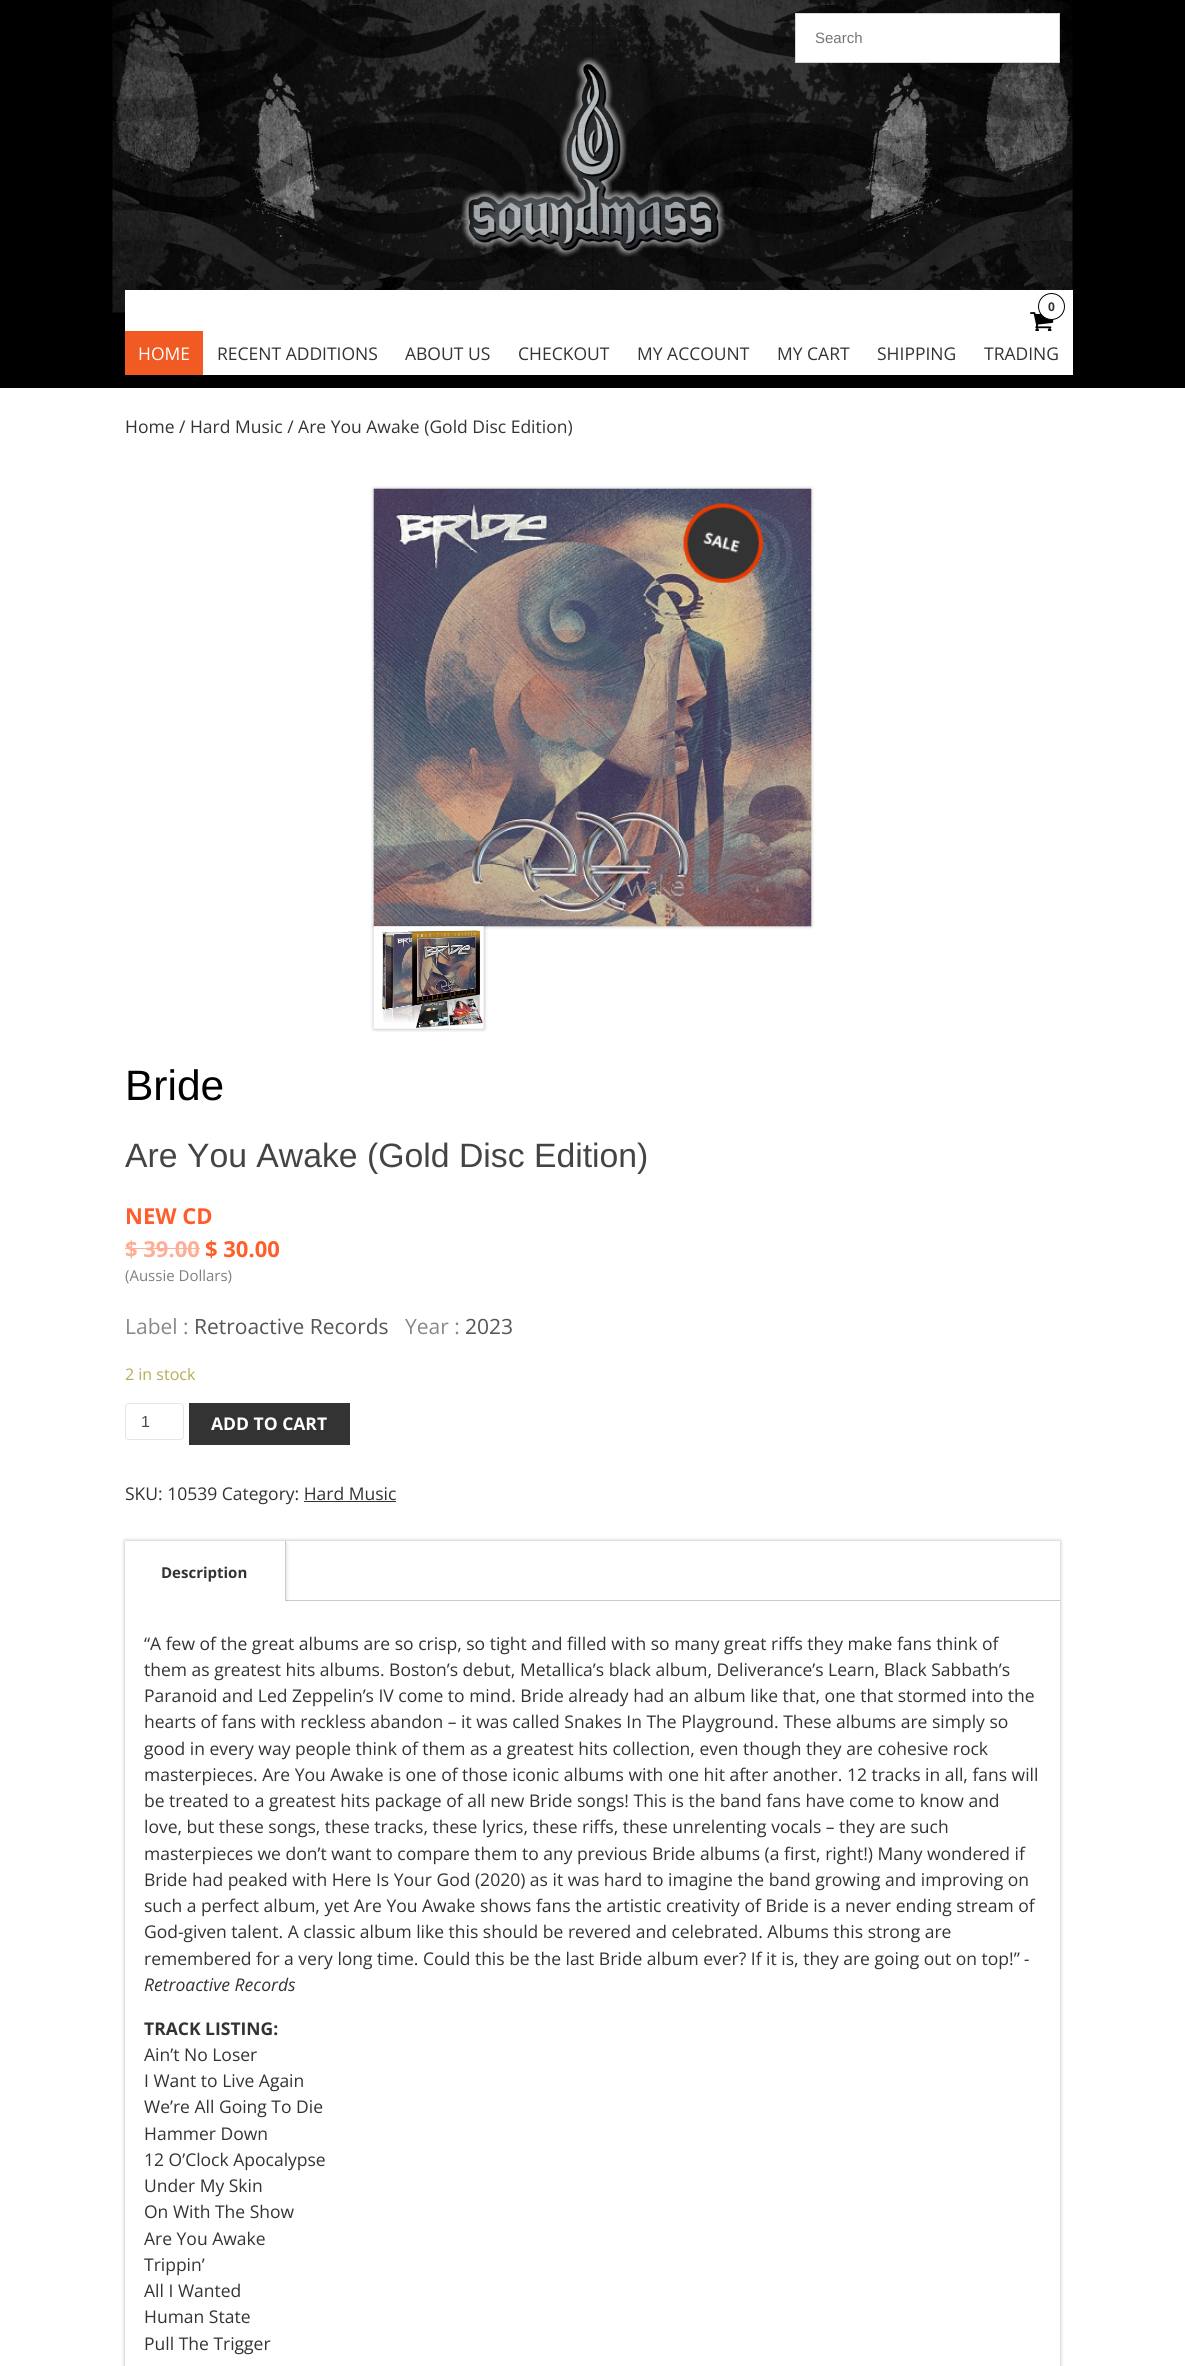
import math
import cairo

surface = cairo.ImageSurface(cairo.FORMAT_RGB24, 1185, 2366)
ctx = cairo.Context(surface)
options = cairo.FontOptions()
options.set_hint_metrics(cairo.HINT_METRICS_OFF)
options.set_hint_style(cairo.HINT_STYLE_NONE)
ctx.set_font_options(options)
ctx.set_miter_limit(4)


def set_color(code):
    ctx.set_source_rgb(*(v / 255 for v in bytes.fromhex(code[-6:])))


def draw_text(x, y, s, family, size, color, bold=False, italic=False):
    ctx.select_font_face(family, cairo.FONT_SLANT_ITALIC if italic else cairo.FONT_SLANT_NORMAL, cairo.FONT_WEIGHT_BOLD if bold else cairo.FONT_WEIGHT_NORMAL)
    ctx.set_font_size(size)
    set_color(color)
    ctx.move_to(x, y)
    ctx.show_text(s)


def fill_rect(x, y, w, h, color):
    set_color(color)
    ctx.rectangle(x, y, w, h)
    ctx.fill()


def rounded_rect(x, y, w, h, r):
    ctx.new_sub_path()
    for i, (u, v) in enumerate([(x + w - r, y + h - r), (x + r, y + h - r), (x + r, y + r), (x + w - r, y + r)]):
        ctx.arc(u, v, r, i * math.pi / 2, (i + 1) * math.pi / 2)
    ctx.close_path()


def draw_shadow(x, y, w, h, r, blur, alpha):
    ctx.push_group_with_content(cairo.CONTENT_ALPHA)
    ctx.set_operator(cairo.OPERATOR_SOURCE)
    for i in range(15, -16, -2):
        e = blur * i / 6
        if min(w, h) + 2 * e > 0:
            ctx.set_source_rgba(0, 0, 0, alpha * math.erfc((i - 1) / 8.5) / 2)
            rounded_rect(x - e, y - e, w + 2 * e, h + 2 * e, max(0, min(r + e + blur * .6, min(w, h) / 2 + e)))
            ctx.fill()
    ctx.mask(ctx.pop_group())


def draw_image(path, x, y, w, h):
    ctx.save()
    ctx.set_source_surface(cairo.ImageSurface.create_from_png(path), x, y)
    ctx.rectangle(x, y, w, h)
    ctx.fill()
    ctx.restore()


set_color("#ffffff")
ctx.paint()
fill_rect(0, 0, 1185, 388, "#000000")
draw_image("assets/img1.png", 112, 0, 961, 313)
set_color("#ffffff")
ctx.rectangle(795.5, 13.5, 264, 49)
ctx.fill_preserve()
set_color("#d8d8d8")
ctx.set_line_width(1)
ctx.stroke()
draw_text(815, 43, "Search", "Liberation Sans", 15, "#757575")
fill_rect(125, 290, 948, 85, "#ffffff")
draw_image("assets/img2.png", 1030, 312, 24, 19)
ctx.arc(1051.5, 306.5, 13, 0, 2 * math.pi)
ctx.fill_preserve()
set_color("#020202")
ctx.stroke()
draw_text(1048, 311, "0", "Open Sans", 12, "#333333", bold=True)
fill_rect(125, 331, 78, 44, "#f15a23")
draw_text(138, 360, "HOME", "Open Sans", 17.5, "#ffffff")
draw_text(217, 360, "RECENT ADDITIONS", "Open Sans", 17.5, "#333333")
draw_text(405, 360, "ABOUT US", "Open Sans", 17.5, "#333333")
draw_text(518, 360, "CHECKOUT", "Open Sans", 17.5, "#333333")
draw_text(637, 360, "MY ACCOUNT", "Open Sans", 17.5, "#333333")
draw_text(777, 360, "MY CART", "Open Sans", 17.5, "#333333")
draw_text(877, 360, "SHIPPING", "Open Sans", 17.5, "#333333")
draw_text(984, 360, "TRADING", "Open Sans", 17.5, "#333333")
draw_text(125, 433, "Home / Hard Music / Are You Awake (Gold Disc Edition)", "Open Sans", 17.5, "#333333")
set_color("#000000")
draw_shadow(374, 489, 437, 437, 0, 2, 0.3)
draw_image("assets/img3.png", 373, 488, 439, 439)
draw_image("assets/img6.png", 683, 503, 80, 80)
draw_image("assets/img4.png", 683, 503, 80, 80)
draw_shadow(374, 926, 110, 103, 0, 2, 0.3)
draw_image("assets/img5.png", 373, 926, 111, 103)
draw_text(125, 1100, "Bride", "Liberation Sans", 42.5, "#000000")
draw_text(125, 1167, "Are You Awake (Gold Disc Edition)", "Liberation Sans", 33.75, "#444444")
draw_text(125, 1224, "NEW CD", "Open Sans", 22, "#ff5d2a", bold=True)
draw_text(125, 1257, "$ 39.00", "Open Sans", 22, "#ffae95", bold=True)
fill_rect(125, 1248, 75, 1, "#ffae95")
draw_text(205, 1257, "$ 30.00", "Open Sans", 22, "#ff5d2a", bold=True)
draw_text(125, 1281, "(Aussie Dollars)", "Open Sans", 15, "#808080")
draw_text(125, 1334, "Label :", "Open Sans", 21, "#888888")
draw_text(194, 1334, "Retroactive Records", "Open Sans", 21, "#555555")
draw_text(405, 1334, "Year :", "Open Sans", 21, "#888888")
draw_text(465, 1334, "2023", "Open Sans", 21, "#555555")
draw_text(125, 1380, "2 in stock", "Open Sans", 16, "#b3af54")
rounded_rect(125.5, 1403.5, 58, 36, 3.5)
set_color("#e5e5e5")
ctx.stroke()
draw_text(141, 1427, "1", "Liberation Sans", 16, "#45494c")
fill_rect(189, 1403, 161, 42, "#333333")
draw_text(211, 1430, "ADD TO CART", "Open Sans", 17.5, "#ffffff", bold=True)
draw_text(125, 1500, "SKU: 10539 Category: Hard Music", "Open Sans", 17.5, "#333333")
fill_rect(304, 1501, 92, 1, "#333333")
ctx.save()
ctx.set_fill_rule(cairo.FILL_RULE_EVEN_ODD)
ctx.new_path()
ctx.move_to(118, 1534)
ctx.line_to(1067, 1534)
ctx.line_to(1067, 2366)
ctx.line_to(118, 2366)
ctx.close_path()
ctx.move_to(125, 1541)
ctx.line_to(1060, 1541)
ctx.line_to(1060, 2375)
ctx.line_to(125, 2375)
ctx.close_path()
ctx.clip()
set_color("#000000")
draw_shadow(125, 1541, 935, 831, 0, 2, 0.3)
ctx.restore()
fill_rect(286, 1600, 774, 1, "#cfc8d8")
ctx.save()
ctx.rectangle(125, 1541, 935, 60)
ctx.clip()
set_color("#000000")
draw_shadow(123, 1543, 163, 65, 0, 2, 0.2)
ctx.restore()
fill_rect(125, 1541, 160, 60, "#ffffff")
fill_rect(285, 1541, 1, 60, "#cfc8d8")
draw_text(161, 1578, "Description", "Open Sans", 15, "#333333", bold=True)
draw_text(144, 1650, "“A few of the great albums are so crisp, so tight and filled with so many great riffs they make fans think of", "Open Sans", 17.5, "#333333")
draw_text(144, 1676, "them as greatest hits albums. Boston’s debut, Metallica’s black album, Deliverance’s Learn, Black Sabbath’s", "Open Sans", 17.5, "#333333")
draw_text(144, 1702, "Paranoid and Led Zeppelin’s IV come to mind. Bride already had an album like that, one that stormed into the", "Open Sans", 17.5, "#333333")
draw_text(144, 1728, "hearts of fans with reckless abandon – it was called Snakes In The Playground. These albums are simply so", "Open Sans", 17.5, "#333333")
draw_text(144, 1755, "good in every way people think of them as a greatest hits collection, even though they are cohesive rock", "Open Sans", 17.5, "#333333")
draw_text(144, 1781, "masterpieces. Are You Awake is one of those iconic albums with one hit after another. 12 tracks in all, fans will", "Open Sans", 17.5, "#333333")
draw_text(144, 1807, "be treated to a greatest hits package of all new Bride songs! This is the band fans have come to know and", "Open Sans", 17.5, "#333333")
draw_text(144, 1833, "love, but these songs, these tracks, these lyrics, these riffs, these unrelenting vocals – they are such", "Open Sans", 17.5, "#333333")
draw_text(144, 1860, "masterpieces we don’t want to compare them to any previous Bride albums (a first, right!) Many wondered if", "Open Sans", 17.5, "#333333")
draw_text(144, 1886, "Bride had peaked with Here Is Your God (2020) as it was hard to imagine the band growing and improving on", "Open Sans", 17.5, "#333333")
draw_text(144, 1912, "such a perfect album, yet Are You Awake shows fans the artistic creativity of Bride is a never ending stream of", "Open Sans", 17.5, "#333333")
draw_text(144, 1938, "God-given talent. A classic album like this should be revered and celebrated. Albums this strong are", "Open Sans", 17.5, "#333333")
draw_text(144, 1965, "remembered for a very long time. Could this be the last Bride album ever? If it is, they are going out on top!”", "Open Sans", 17.5, "#333333")
draw_text(1024, 1965, "-", "Open Sans", 17.5, "#333333", italic=True)
draw_text(144, 1991, "Retroactive Records", "Open Sans", 17.5, "#333333", italic=True)
draw_text(144, 2035, "TRACK LISTING:", "Open Sans", 17.5, "#333333", bold=True)
draw_text(144, 2061, "Ain’t No Loser", "Open Sans", 17.5, "#333333")
draw_text(144, 2087, "I Want to Live Again", "Open Sans", 17.5, "#333333")
draw_text(144, 2113, "We’re All Going To Die", "Open Sans", 17.5, "#333333")
draw_text(144, 2140, "Hammer Down", "Open Sans", 17.5, "#333333")
draw_text(144, 2166, "12 O’Clock Apocalypse", "Open Sans", 17.5, "#333333")
draw_text(144, 2192, "Under My Skin", "Open Sans", 17.5, "#333333")
draw_text(144, 2218, "On With The Show", "Open Sans", 17.5, "#333333")
draw_text(144, 2245, "Are You Awake", "Open Sans", 17.5, "#333333")
draw_text(144, 2271, "Trippin’", "Open Sans", 17.5, "#333333")
draw_text(144, 2297, "All I Wanted", "Open Sans", 17.5, "#333333")
draw_text(144, 2323, "Human State", "Open Sans", 17.5, "#333333")
draw_text(144, 2350, "Pull The Trigger", "Open Sans", 17.5, "#333333")
surface.write_to_png("output.png")
